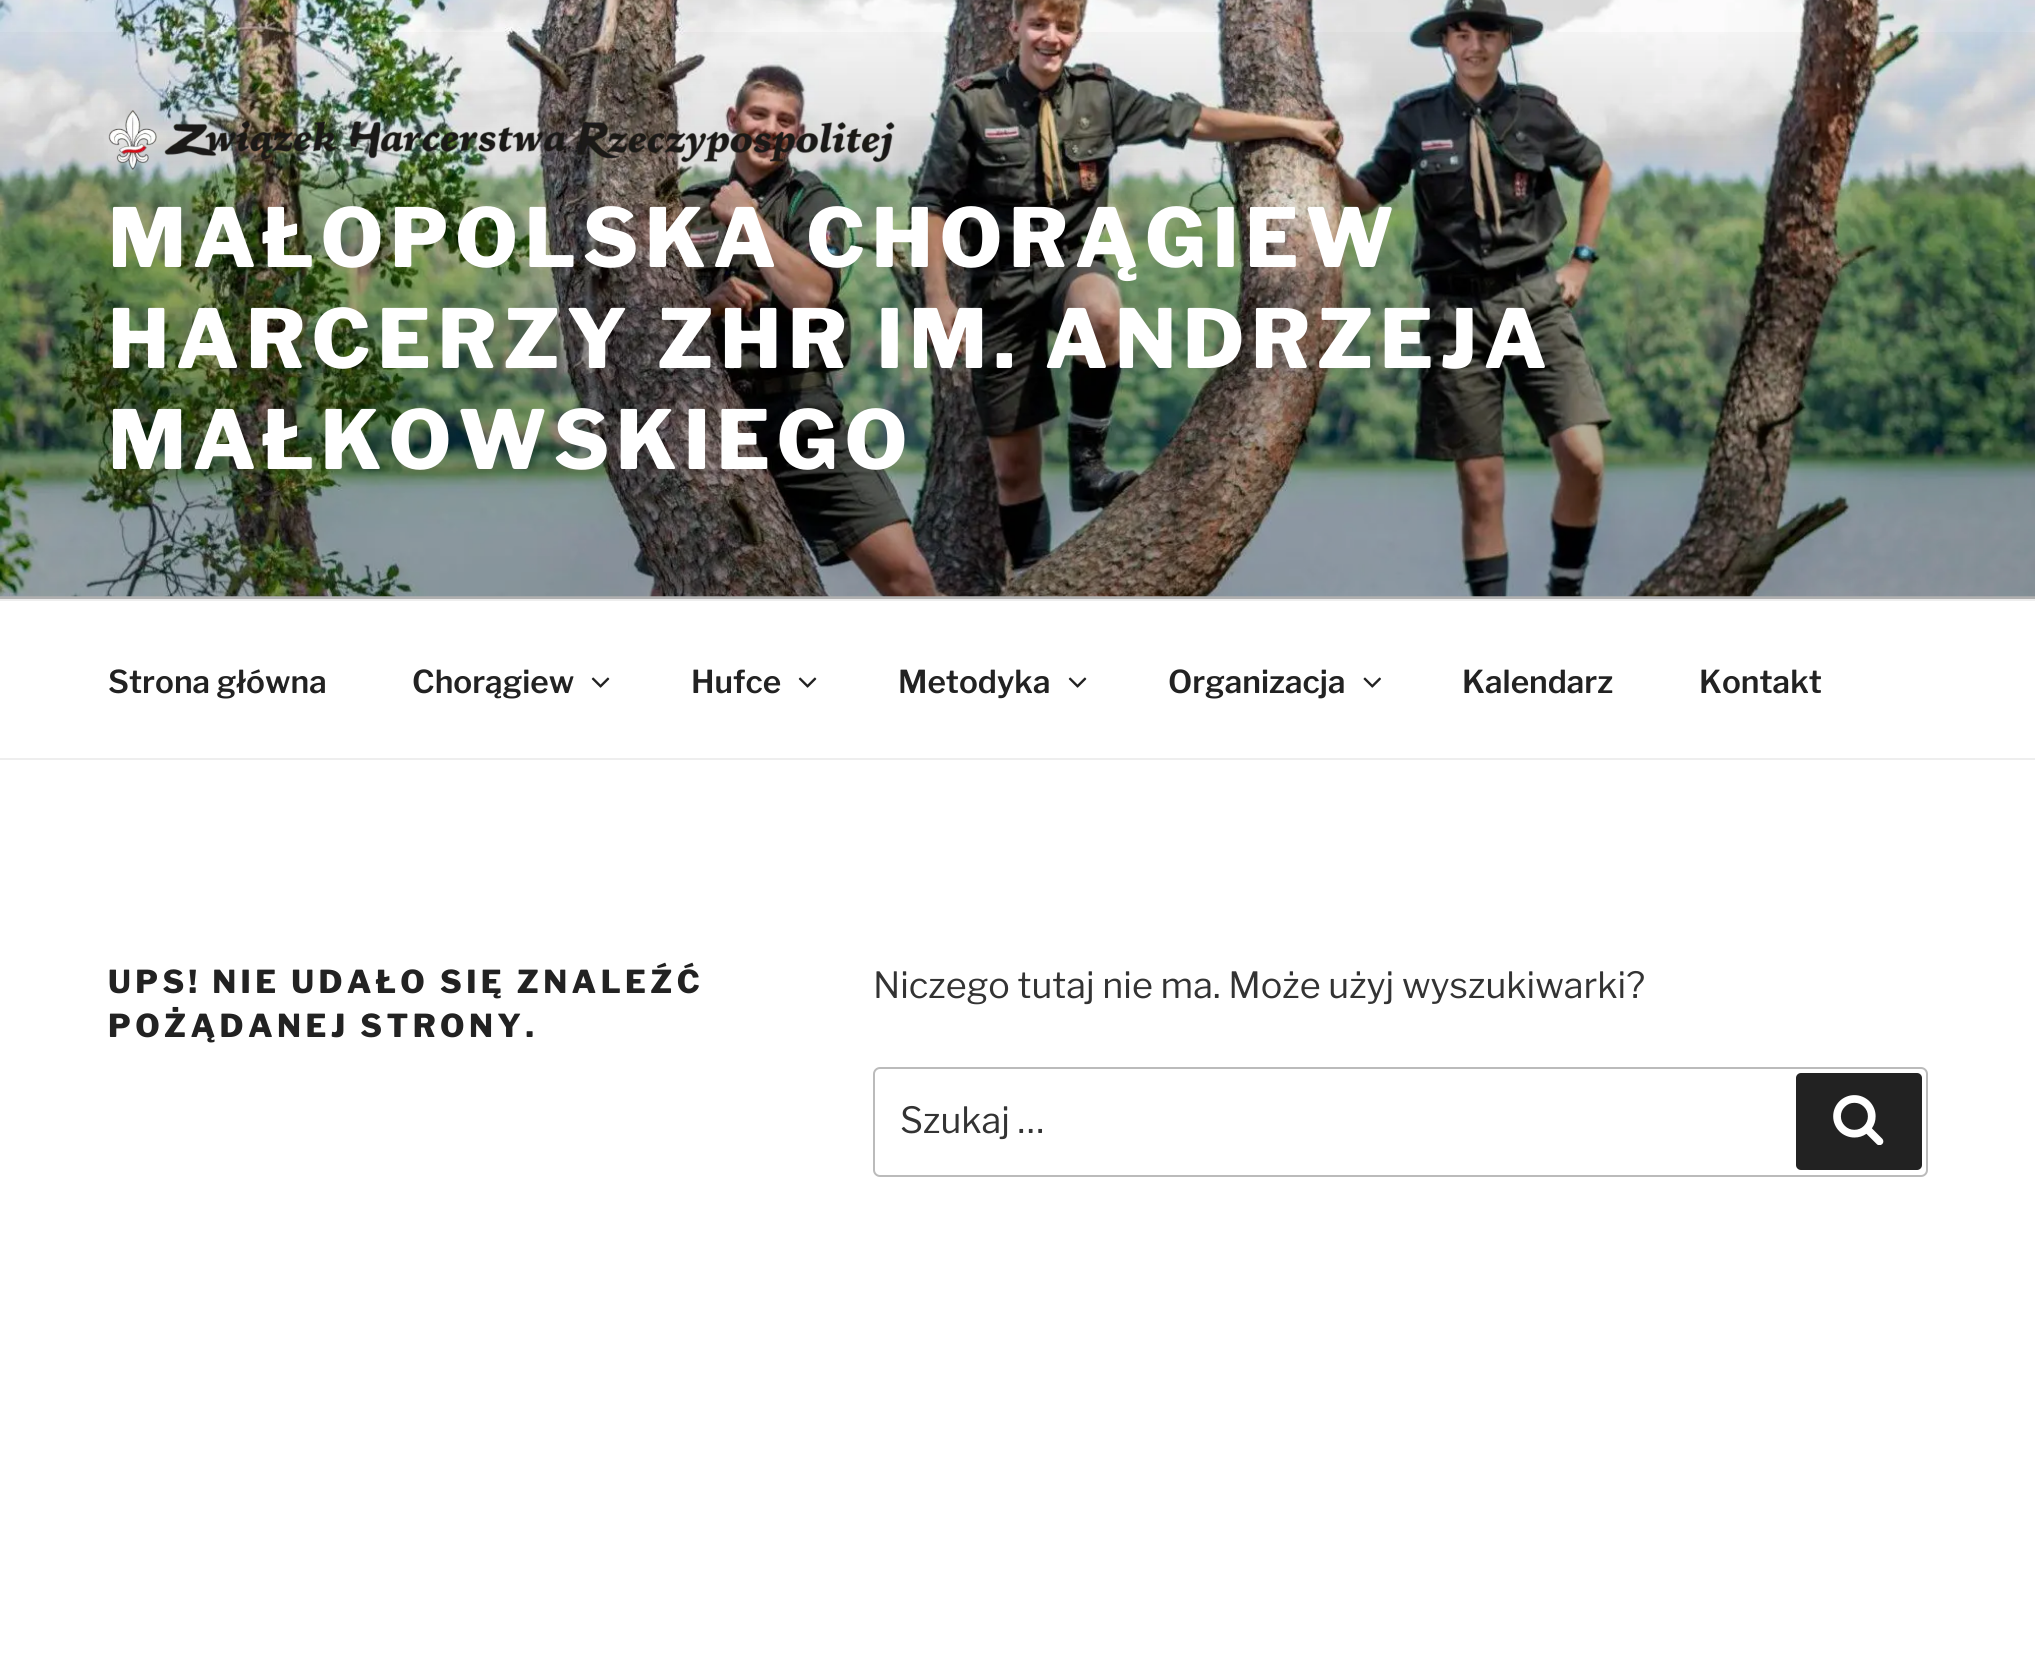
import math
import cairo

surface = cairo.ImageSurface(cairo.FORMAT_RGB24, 2035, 1654)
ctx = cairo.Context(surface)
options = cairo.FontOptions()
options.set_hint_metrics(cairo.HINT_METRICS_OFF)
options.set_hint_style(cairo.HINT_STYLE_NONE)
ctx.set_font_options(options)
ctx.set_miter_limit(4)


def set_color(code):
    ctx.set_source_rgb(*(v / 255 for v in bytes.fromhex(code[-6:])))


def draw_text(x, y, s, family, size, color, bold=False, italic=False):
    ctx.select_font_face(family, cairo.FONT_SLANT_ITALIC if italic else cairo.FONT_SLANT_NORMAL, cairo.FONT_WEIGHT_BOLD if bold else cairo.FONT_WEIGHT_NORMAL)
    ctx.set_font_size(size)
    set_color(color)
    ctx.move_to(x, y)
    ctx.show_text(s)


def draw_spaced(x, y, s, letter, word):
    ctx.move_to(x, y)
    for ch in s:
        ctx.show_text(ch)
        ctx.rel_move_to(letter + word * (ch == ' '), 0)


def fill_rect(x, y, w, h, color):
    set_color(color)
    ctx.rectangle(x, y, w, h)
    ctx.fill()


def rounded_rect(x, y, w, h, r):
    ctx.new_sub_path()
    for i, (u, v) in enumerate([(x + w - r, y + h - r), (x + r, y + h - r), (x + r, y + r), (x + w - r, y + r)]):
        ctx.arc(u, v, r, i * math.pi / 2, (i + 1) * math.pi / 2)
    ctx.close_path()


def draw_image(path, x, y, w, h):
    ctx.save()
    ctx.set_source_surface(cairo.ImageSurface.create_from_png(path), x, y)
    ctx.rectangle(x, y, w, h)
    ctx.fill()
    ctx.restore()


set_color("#ffffff")
ctx.paint()
fill_rect(0, 596, 2035, 3, "#fafafa")
draw_image("assets/img1.png", 0, 0, 2035, 597)
gradient = cairo.LinearGradient(1018, 0, 1018, 599)
gradient.add_color_stop_rgba(0, 0, 0, 0, 0)
gradient.add_color_stop_rgba(0.75, 0, 0, 0, 0.3)
gradient.add_color_stop_rgba(1, 0, 0, 0, 0.3)
ctx.set_source(gradient)
ctx.rectangle(0, 32, 2035, 567)
ctx.fill()
draw_image("assets/img2.png", 108, 110, 787, 60)
ctx.select_font_face("Libre Franklin Thin")
ctx.set_font_size(81)
set_color("#ffffff")
draw_spaced(108, 267, "MAŁOPOLSKA CHORĄGIEW", 6.5, 0)
draw_spaced(108, 368, "HARCERZY ZHR IM. ANDRZEJA", 6.5, 0)
draw_spaced(108, 469, "MAŁKOWSKIEGO", 6.5, 0)
fill_rect(0, 599, 2035, 2, "#eeeeee")
fill_rect(0, 758, 2035, 2, "#eeeeee")
draw_text(108, 693, "Strona główna", "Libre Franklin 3 Thin", 31.5, "#222222")
draw_text(412, 693, "Chorągiew", "Libre Franklin 3 Thin", 31.5, "#222222")
draw_image("assets/img3.png", 591, 677, 19, 11)
draw_text(691, 693, "Hufce", "Libre Franklin 3 Thin", 31.5, "#222222")
draw_image("assets/img3.png", 798, 677, 19, 11)
draw_text(898, 693, "Metodyka", "Libre Franklin 3 Thin", 31.5, "#222222")
draw_image("assets/img3.png", 1068, 677, 19, 11)
draw_text(1168, 693, "Organizacja", "Libre Franklin 3 Thin", 31.5, "#222222")
draw_image("assets/img4.png", 1363, 677, 18, 11)
draw_text(1462, 693, "Kalendarz", "Libre Franklin 3 Thin", 31.5, "#222222")
draw_text(1699, 693, "Kontakt", "Libre Franklin 3 Thin", 31.5, "#222222")
ctx.select_font_face("Libre Franklin Thin")
draw_spaced(108, 993, "UPS! NIE UDAŁO SIĘ ZNALEŹĆ", 4.4, 0)
draw_spaced(108, 1037, "POŻĄDANEJ STRONY.", 4.4, 0)
draw_text(873, 998, "Niczego tutaj nie ma. Może użyj wyszukiwarki?", "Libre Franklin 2 Thin", 36, "#333333")
rounded_rect(874, 1068, 1053, 108, 6)
set_color("#bbbbbb")
ctx.stroke()
draw_text(900, 1133, "Szukaj …", "Libre Franklin 2 Thin", 36, "#333333")
set_color("#222222")
rounded_rect(1796, 1073, 126, 97, 5)
ctx.fill()
draw_image("assets/img5.png", 1833, 1095, 51, 50)
surface.write_to_png("output.png")
